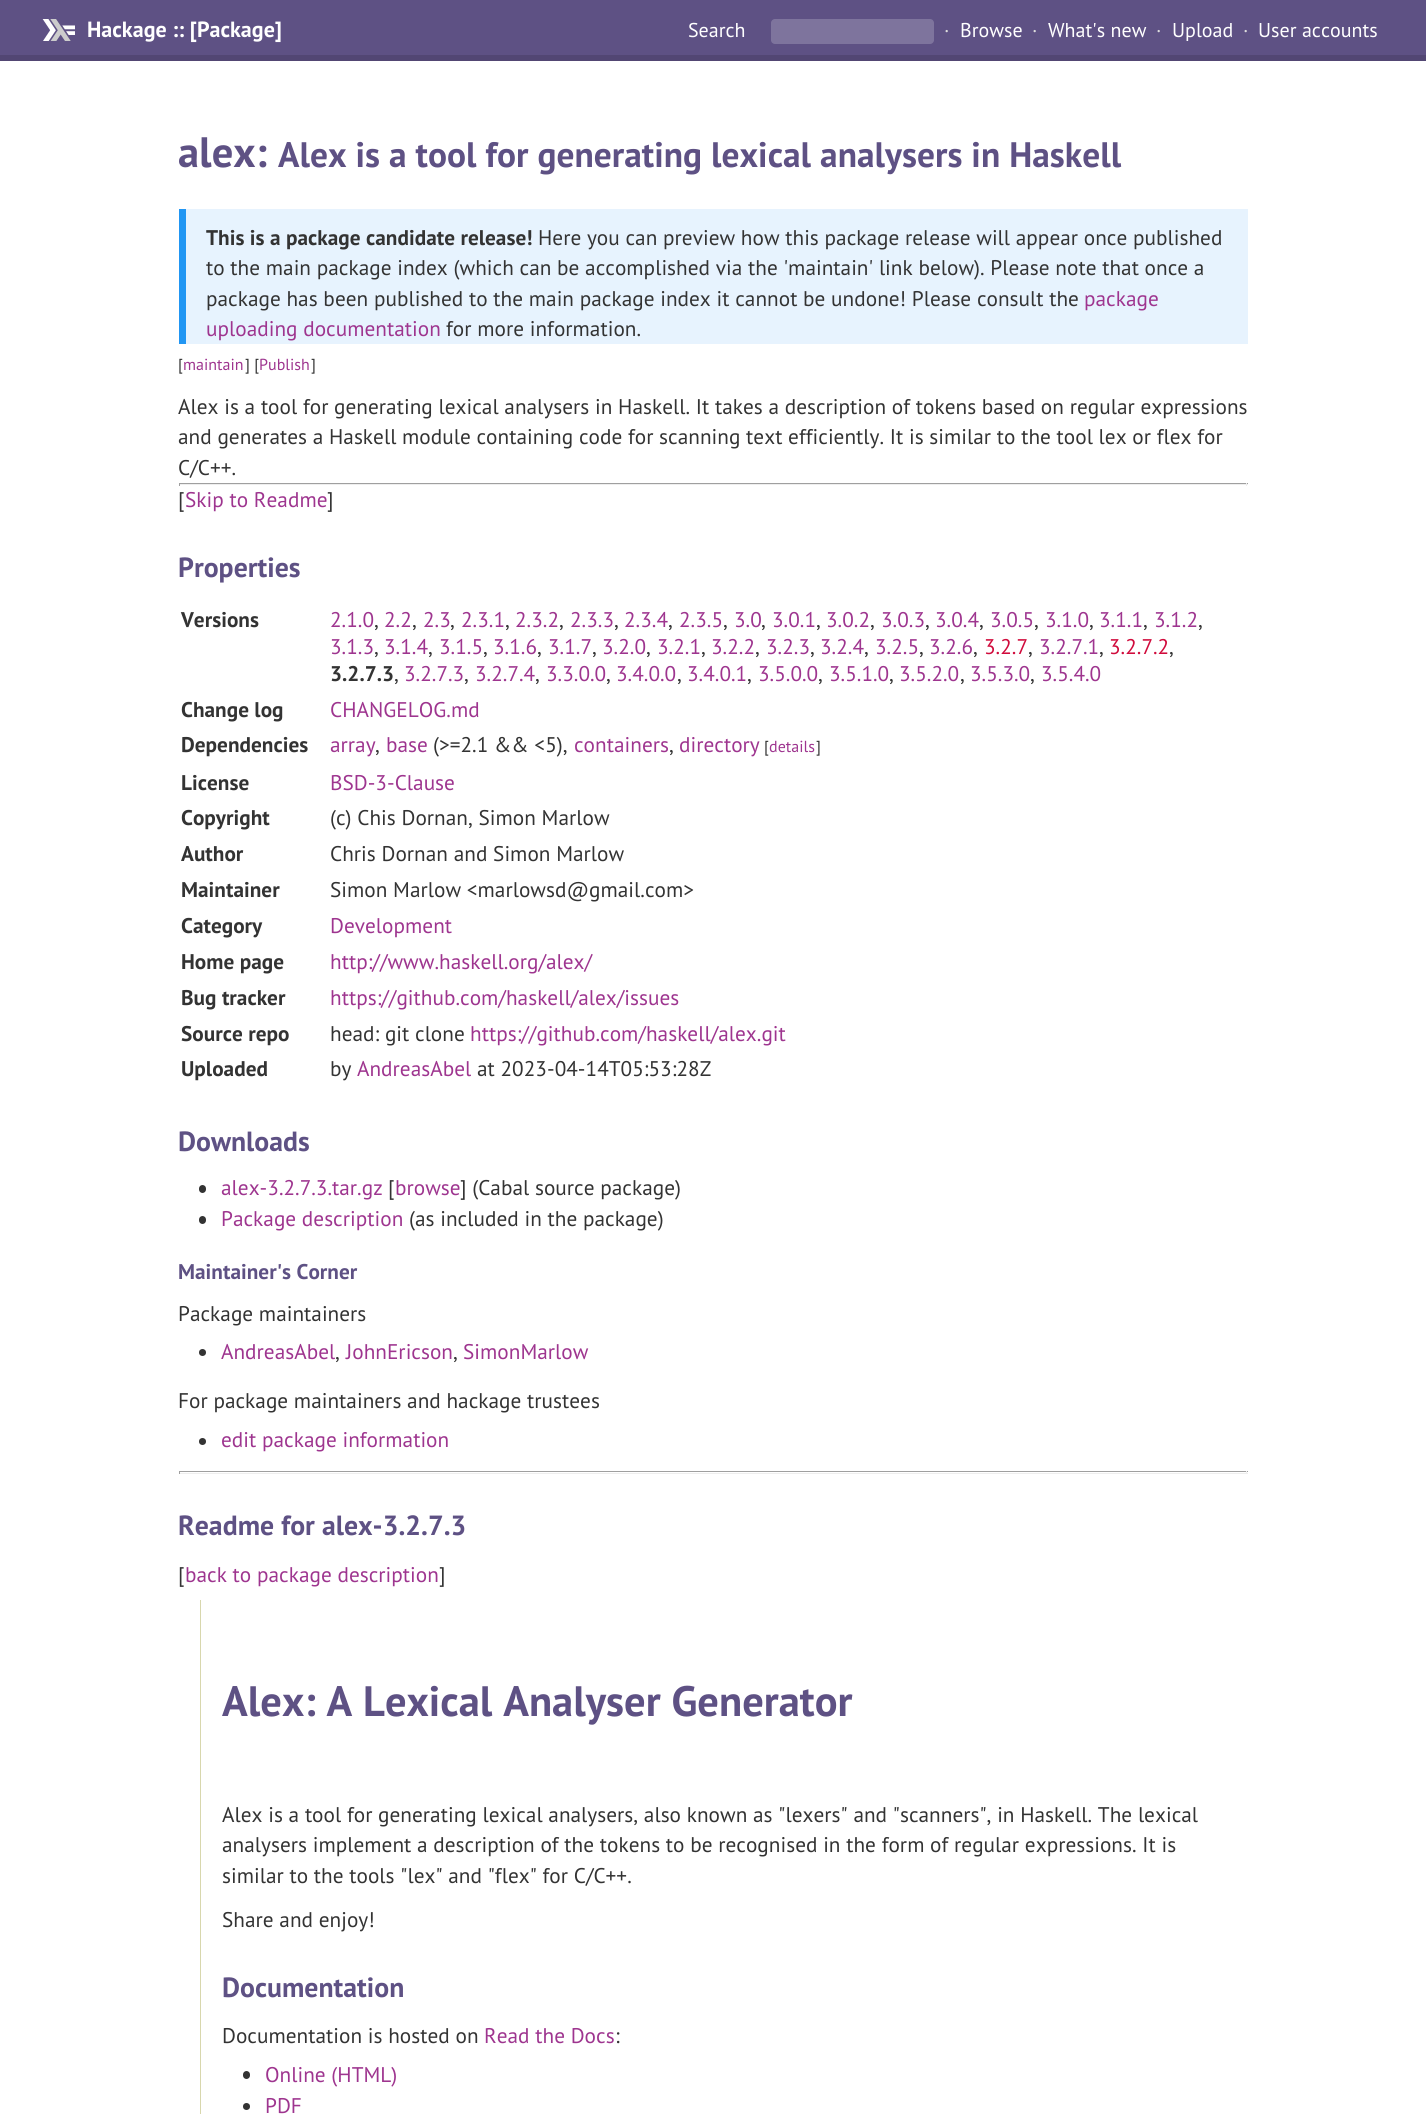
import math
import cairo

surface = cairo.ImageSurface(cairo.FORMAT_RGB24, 1426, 2114)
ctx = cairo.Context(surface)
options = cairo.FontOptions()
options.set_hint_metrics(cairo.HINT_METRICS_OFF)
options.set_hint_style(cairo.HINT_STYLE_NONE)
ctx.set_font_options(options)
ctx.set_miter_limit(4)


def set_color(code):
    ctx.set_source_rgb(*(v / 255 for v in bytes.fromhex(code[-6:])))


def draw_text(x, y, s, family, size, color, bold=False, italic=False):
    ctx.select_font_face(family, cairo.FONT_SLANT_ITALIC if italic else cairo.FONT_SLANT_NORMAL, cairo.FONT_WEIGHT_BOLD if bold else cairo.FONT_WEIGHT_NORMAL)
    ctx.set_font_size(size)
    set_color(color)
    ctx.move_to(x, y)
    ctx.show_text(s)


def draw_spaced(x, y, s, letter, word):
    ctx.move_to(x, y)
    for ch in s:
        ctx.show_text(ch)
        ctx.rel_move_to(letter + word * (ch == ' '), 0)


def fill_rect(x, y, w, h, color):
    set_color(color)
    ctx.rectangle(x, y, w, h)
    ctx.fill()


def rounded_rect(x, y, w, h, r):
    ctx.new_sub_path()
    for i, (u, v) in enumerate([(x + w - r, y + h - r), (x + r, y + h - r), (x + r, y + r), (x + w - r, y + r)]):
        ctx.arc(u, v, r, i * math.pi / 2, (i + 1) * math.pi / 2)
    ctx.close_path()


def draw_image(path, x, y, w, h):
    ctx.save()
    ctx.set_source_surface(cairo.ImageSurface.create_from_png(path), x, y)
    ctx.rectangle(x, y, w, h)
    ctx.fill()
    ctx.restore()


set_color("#ffffff")
ctx.paint()
fill_rect(0, 0, 1426, 55, "#5e5184")
fill_rect(0, 55, 1426, 6, "#524673")
draw_image("assets/img1.png", 42, 19, 33, 22)
ctx.select_font_face("PT Sans", cairo.FONT_SLANT_NORMAL, cairo.FONT_WEIGHT_BOLD)
ctx.set_font_size(22)
set_color("#ffffff")
draw_spaced(87, 37, "Hackage :: [Package]", 0.03, 0)
draw_text(688, 37, "Search", "PT Sans", 20, "#ffffff")
set_color("#7e749d")
rounded_rect(771, 19, 163, 25, 4)
ctx.fill()
set_color("#dddddd")
draw_spaced(944, 37, "·", 0.03, 0)
set_color("#ffffff")
draw_spaced(960, 37, "Browse", 0.03, 0)
set_color("#dddddd")
draw_spaced(1032, 37, "·", 0.03, 0)
set_color("#ffffff")
draw_spaced(1048, 37, "What's new", 0.03, 0)
set_color("#dddddd")
draw_spaced(1156, 37, "·", 0.03, 0)
set_color("#ffffff")
draw_spaced(1172, 37, "Upload", 0.03, 0)
set_color("#dddddd")
draw_spaced(1243, 37, "·", 0.03, 0)
set_color("#ffffff")
draw_spaced(1258, 37, "User accounts", 0.03, 0)
ctx.select_font_face("PT Sans", cairo.FONT_SLANT_NORMAL, cairo.FONT_WEIGHT_BOLD)
ctx.set_font_size(42.5)
set_color("#5e5184")
draw_spaced(178, 167, "alex:", 0.03, 0)
ctx.set_font_size(35.4)
draw_spaced(278, 167, "Alex is a tool for generating lexical analysers in Haskell", 0.03, 0)
fill_rect(186, 209, 1062, 135, "#e7f3fe")
fill_rect(179, 209, 7, 135, "#2196f3")
ctx.set_font_size(21.25)
set_color("#333333")
draw_spaced(206, 245, "This is a package candidate release!", 0.03, 0)
ctx.select_font_face("PT Sans")
draw_spaced(538, 245, "Here you can preview how this package release will appear once published", 0.03, 0)
draw_spaced(206, 275, "to the main package index (which can be accomplished via the 'maintain' link below). Please note that once a", 0.03, 0)
draw_spaced(206, 306, "package has been published to the main package index it cannot be undone! Please consult the", 0.03, 0)
set_color("#9e358f")
draw_spaced(1084, 306, "package", 0.03, 0)
draw_spaced(206, 336, "uploading documentation", 0.03, 0)
set_color("#333333")
draw_spaced(446, 336, "for more information.", 0.03, 0)
ctx.set_font_size(16)
draw_spaced(178, 370, "[", 0.03, 0)
set_color("#9e358f")
draw_spaced(183, 370, "maintain", 0.03, 0)
set_color("#333333")
draw_spaced(245, 370, "] [", 0.03, 0)
set_color("#9e358f")
draw_spaced(259, 370, "Publish", 0.03, 0)
set_color("#333333")
draw_spaced(311, 370, "]", 0.03, 0)
ctx.set_font_size(21.25)
draw_spaced(178, 414, "Alex is a tool for generating lexical analysers in Haskell. It takes a description of tokens based on regular expressions", 0.03, 0)
draw_spaced(178, 444, "and generates a Haskell module containing code for scanning text efficiently. It is similar to the tool lex or flex for", 0.03, 0)
draw_spaced(178, 475, "C/C++.", 0.03, 0)
fill_rect(179, 483, 1069, 1, "#9f9f9f")
fill_rect(1246, 483, 1, 3, "#eeeeee")
fill_rect(179, 484, 1069, 1, "#eeeeee")
fill_rect(179, 483, 1, 3, "#9f9f9f")
set_color("#333333")
draw_spaced(178, 507, "[", 0.03, 0)
set_color("#9e358f")
draw_spaced(185, 507, "Skip to Readme", 0.03, 0)
set_color("#333333")
draw_spaced(327, 507, "]", 0.03, 0)
ctx.select_font_face("PT Sans", cairo.FONT_SLANT_NORMAL, cairo.FONT_WEIGHT_BOLD)
ctx.set_font_size(27.75)
set_color("#5e5184")
draw_spaced(178, 577, "Properties", 0.03, 0)
ctx.set_font_size(21.25)
set_color("#333333")
draw_spaced(181, 627, "Versions", 0.03, 0)
ctx.select_font_face("PT Sans")
set_color("#9e358f")
draw_spaced(330, 627, "2.1.0", 0.03, 0)
set_color("#333333")
draw_spaced(374, 627, ",", 0.03, 0)
set_color("#9e358f")
draw_spaced(384, 627, "2.2", 0.03, 0)
set_color("#333333")
draw_spaced(412, 627, ",", 0.03, 0)
set_color("#9e358f")
draw_spaced(423, 627, "2.3", 0.03, 0)
set_color("#333333")
draw_spaced(450, 627, ",", 0.03, 0)
set_color("#9e358f")
draw_spaced(461, 627, "2.3.1", 0.03, 0)
set_color("#333333")
draw_spaced(505, 627, ",", 0.03, 0)
set_color("#9e358f")
draw_spaced(515, 627, "2.3.2", 0.03, 0)
set_color("#333333")
draw_spaced(559, 627, ",", 0.03, 0)
set_color("#9e358f")
draw_spaced(570, 627, "2.3.3", 0.03, 0)
set_color("#333333")
draw_spaced(614, 627, ",", 0.03, 0)
set_color("#9e358f")
draw_spaced(624, 627, "2.3.4", 0.03, 0)
set_color("#333333")
draw_spaced(668, 627, ",", 0.03, 0)
set_color("#9e358f")
draw_spaced(679, 627, "2.3.5", 0.03, 0)
set_color("#333333")
draw_spaced(723, 627, ",", 0.03, 0)
set_color("#9e358f")
draw_spaced(734, 627, "3.0", 0.03, 0)
set_color("#333333")
draw_spaced(761, 627, ",", 0.03, 0)
set_color("#9e358f")
draw_spaced(772, 627, "3.0.1", 0.03, 0)
set_color("#333333")
draw_spaced(816, 627, ",", 0.03, 0)
set_color("#9e358f")
draw_spaced(826, 627, "3.0.2", 0.03, 0)
set_color("#333333")
draw_spaced(870, 627, ",", 0.03, 0)
set_color("#9e358f")
draw_spaced(881, 627, "3.0.3", 0.03, 0)
set_color("#333333")
draw_spaced(925, 627, ",", 0.03, 0)
set_color("#9e358f")
draw_spaced(935, 627, "3.0.4", 0.03, 0)
set_color("#333333")
draw_spaced(979, 627, ",", 0.03, 0)
set_color("#9e358f")
draw_spaced(990, 627, "3.0.5", 0.03, 0)
set_color("#333333")
draw_spaced(1034, 627, ",", 0.03, 0)
set_color("#9e358f")
draw_spaced(1045, 627, "3.1.0", 0.03, 0)
set_color("#333333")
draw_spaced(1089, 627, ",", 0.03, 0)
set_color("#9e358f")
draw_spaced(1099, 627, "3.1.1", 0.03, 0)
set_color("#333333")
draw_spaced(1143, 627, ",", 0.03, 0)
set_color("#9e358f")
draw_spaced(1154, 627, "3.1.2", 0.03, 0)
set_color("#333333")
draw_spaced(1198, 627, ",", 0.03, 0)
set_color("#9e358f")
draw_spaced(330, 654, "3.1.3", 0.03, 0)
set_color("#333333")
draw_spaced(374, 654, ",", 0.03, 0)
set_color("#9e358f")
draw_spaced(384, 654, "3.1.4", 0.03, 0)
set_color("#333333")
draw_spaced(428, 654, ",", 0.03, 0)
set_color("#9e358f")
draw_spaced(439, 654, "3.1.5", 0.03, 0)
set_color("#333333")
draw_spaced(483, 654, ",", 0.03, 0)
set_color("#9e358f")
draw_spaced(493, 654, "3.1.6", 0.03, 0)
set_color("#333333")
draw_spaced(537, 654, ",", 0.03, 0)
set_color("#9e358f")
draw_spaced(548, 654, "3.1.7", 0.03, 0)
set_color("#333333")
draw_spaced(592, 654, ",", 0.03, 0)
set_color("#9e358f")
draw_spaced(602, 654, "3.2.0", 0.03, 0)
set_color("#333333")
draw_spaced(646, 654, ",", 0.03, 0)
set_color("#9e358f")
draw_spaced(657, 654, "3.2.1", 0.03, 0)
set_color("#333333")
draw_spaced(701, 654, ",", 0.03, 0)
set_color("#9e358f")
draw_spaced(711, 654, "3.2.2", 0.03, 0)
set_color("#333333")
draw_spaced(755, 654, ",", 0.03, 0)
set_color("#9e358f")
draw_spaced(766, 654, "3.2.3", 0.03, 0)
set_color("#333333")
draw_spaced(810, 654, ",", 0.03, 0)
set_color("#9e358f")
draw_spaced(820, 654, "3.2.4", 0.03, 0)
set_color("#333333")
draw_spaced(864, 654, ",", 0.03, 0)
set_color("#9e358f")
draw_spaced(875, 654, "3.2.5", 0.03, 0)
set_color("#333333")
draw_spaced(919, 654, ",", 0.03, 0)
set_color("#9e358f")
draw_spaced(929, 654, "3.2.6", 0.03, 0)
set_color("#333333")
draw_spaced(973, 654, ",", 0.03, 0)
set_color("#d00b3c")
draw_spaced(984, 654, "3.2.7", 0.03, 0)
set_color("#333333")
draw_spaced(1028, 654, ",", 0.03, 0)
set_color("#9e358f")
draw_spaced(1039, 654, "3.2.7.1", 0.03, 0)
set_color("#333333")
draw_spaced(1099, 654, ",", 0.03, 0)
set_color("#d00b3c")
draw_spaced(1109, 654, "3.2.7.2", 0.03, 0)
set_color("#333333")
draw_spaced(1169, 654, ",", 0.03, 0)
ctx.select_font_face("PT Sans", cairo.FONT_SLANT_NORMAL, cairo.FONT_WEIGHT_BOLD)
draw_spaced(330, 681, "3.2.7.3", 0.03, 0)
ctx.select_font_face("PT Sans")
draw_spaced(394, 681, ",", 0.03, 0)
set_color("#9e358f")
draw_spaced(404, 681, "3.2.7.3", 0.03, 0)
set_color("#333333")
draw_spaced(464, 681, ",", 0.03, 0)
set_color("#9e358f")
draw_spaced(475, 681, "3.2.7.4", 0.03, 0)
set_color("#333333")
draw_spaced(535, 681, ",", 0.03, 0)
set_color("#9e358f")
draw_spaced(546, 681, "3.3.0.0", 0.03, 0)
set_color("#333333")
draw_spaced(606, 681, ",", 0.03, 0)
set_color("#9e358f")
draw_spaced(616, 681, "3.4.0.0", 0.03, 0)
set_color("#333333")
draw_spaced(677, 681, ",", 0.03, 0)
set_color("#9e358f")
draw_spaced(687, 681, "3.4.0.1", 0.03, 0)
set_color("#333333")
draw_spaced(747, 681, ",", 0.03, 0)
set_color("#9e358f")
draw_spaced(758, 681, "3.5.0.0", 0.03, 0)
set_color("#333333")
draw_spaced(818, 681, ",", 0.03, 0)
set_color("#9e358f")
draw_spaced(829, 681, "3.5.1.0", 0.03, 0)
set_color("#333333")
draw_spaced(889, 681, ",", 0.03, 0)
set_color("#9e358f")
draw_spaced(899, 681, "3.5.2.0", 0.03, 0)
set_color("#333333")
draw_spaced(960, 681, ",", 0.03, 0)
set_color("#9e358f")
draw_spaced(970, 681, "3.5.3.0", 0.03, 0)
set_color("#333333")
draw_spaced(1030, 681, ",", 0.03, 0)
set_color("#9e358f")
draw_spaced(1041, 681, "3.5.4.0", 0.03, 0)
ctx.select_font_face("PT Sans", cairo.FONT_SLANT_NORMAL, cairo.FONT_WEIGHT_BOLD)
set_color("#333333")
draw_spaced(181, 717, "Change log", 0.03, 0)
ctx.select_font_face("PT Sans")
set_color("#9e358f")
draw_spaced(330, 717, "CHANGELOG.md", 0.03, 0)
ctx.select_font_face("PT Sans", cairo.FONT_SLANT_NORMAL, cairo.FONT_WEIGHT_BOLD)
set_color("#333333")
draw_spaced(181, 752, "Dependencies", 0.03, 0)
ctx.select_font_face("PT Sans")
set_color("#9e358f")
draw_spaced(330, 752, "array", 0.03, 0)
set_color("#333333")
draw_spaced(375, 752, ",", 0.03, 0)
set_color("#9e358f")
draw_spaced(386, 752, "base", 0.03, 0)
set_color("#333333")
draw_spaced(433, 752, "(>=2.1 && <5),", 0.03, 0)
set_color("#9e358f")
draw_spaced(574, 752, "containers", 0.03, 0)
set_color("#333333")
draw_spaced(669, 752, ",", 0.03, 0)
set_color("#9e358f")
draw_spaced(679, 752, "directory", 0.03, 0)
ctx.set_font_size(16)
set_color("#333333")
draw_spaced(764, 752, "[", 0.03, 0)
set_color("#9e358f")
draw_spaced(769, 752, "details", 0.03, 0)
set_color("#333333")
draw_spaced(816, 752, "]", 0.03, 0)
ctx.select_font_face("PT Sans", cairo.FONT_SLANT_NORMAL, cairo.FONT_WEIGHT_BOLD)
ctx.set_font_size(21.25)
draw_spaced(181, 790, "License", 0.03, 0)
ctx.select_font_face("PT Sans")
set_color("#9e358f")
draw_spaced(330, 790, "BSD-3-Clause", 0.03, 0)
ctx.select_font_face("PT Sans", cairo.FONT_SLANT_NORMAL, cairo.FONT_WEIGHT_BOLD)
set_color("#333333")
draw_spaced(181, 825, "Copyright", 0.03, 0)
ctx.select_font_face("PT Sans")
draw_spaced(330, 825, "(c) Chis Dornan, Simon Marlow", 0.03, 0)
ctx.select_font_face("PT Sans", cairo.FONT_SLANT_NORMAL, cairo.FONT_WEIGHT_BOLD)
draw_spaced(181, 861, "Author", 0.03, 0)
ctx.select_font_face("PT Sans")
draw_spaced(330, 861, "Chris Dornan and Simon Marlow", 0.03, 0)
ctx.select_font_face("PT Sans", cairo.FONT_SLANT_NORMAL, cairo.FONT_WEIGHT_BOLD)
draw_spaced(181, 897, "Maintainer", 0.03, 0)
ctx.select_font_face("PT Sans")
draw_spaced(330, 897, "Simon Marlow <marlowsd@gmail.com>", 0.03, 0)
ctx.select_font_face("PT Sans", cairo.FONT_SLANT_NORMAL, cairo.FONT_WEIGHT_BOLD)
draw_spaced(181, 933, "Category", 0.03, 0)
ctx.select_font_face("PT Sans")
set_color("#9e358f")
draw_spaced(330, 933, "Development", 0.03, 0)
ctx.select_font_face("PT Sans", cairo.FONT_SLANT_NORMAL, cairo.FONT_WEIGHT_BOLD)
set_color("#333333")
draw_spaced(181, 969, "Home page", 0.03, 0)
ctx.select_font_face("PT Sans")
set_color("#9e358f")
draw_spaced(330, 969, "http://www.haskell.org/alex/", 0.03, 0)
ctx.select_font_face("PT Sans", cairo.FONT_SLANT_NORMAL, cairo.FONT_WEIGHT_BOLD)
set_color("#333333")
draw_spaced(181, 1005, "Bug tracker", 0.03, 0)
ctx.select_font_face("PT Sans")
set_color("#9e358f")
draw_spaced(330, 1005, "https://github.com/haskell/alex/issues", 0.03, 0)
ctx.select_font_face("PT Sans", cairo.FONT_SLANT_NORMAL, cairo.FONT_WEIGHT_BOLD)
set_color("#333333")
draw_spaced(181, 1041, "Source repo", 0.03, 0)
ctx.select_font_face("PT Sans")
draw_spaced(330, 1041, "head: git clone", 0.03, 0)
set_color("#9e358f")
draw_spaced(470, 1041, "https://github.com/haskell/alex.git", 0.03, 0)
ctx.select_font_face("PT Sans", cairo.FONT_SLANT_NORMAL, cairo.FONT_WEIGHT_BOLD)
set_color("#333333")
draw_spaced(181, 1076, "Uploaded", 0.03, 0)
ctx.select_font_face("PT Sans")
draw_spaced(330, 1076, "by", 0.03, 0)
set_color("#9e358f")
draw_spaced(357, 1076, "AndreasAbel", 0.03, 0)
set_color("#333333")
draw_spaced(477, 1076, "at 2023-04-14T05:53:28Z", 0.03, 0)
ctx.select_font_face("PT Sans", cairo.FONT_SLANT_NORMAL, cairo.FONT_WEIGHT_BOLD)
ctx.set_font_size(27.75)
set_color("#5e5184")
draw_spaced(178, 1151, "Downloads", 0.03, 0)
set_color("#333333")
rounded_rect(199, 1185, 7, 8, 3.5)
ctx.fill()
ctx.select_font_face("PT Sans")
ctx.set_font_size(21.25)
set_color("#9e358f")
draw_spaced(221, 1195, "alex-3.2.7.3.tar.gz", 0.03, 0)
set_color("#333333")
draw_spaced(388, 1195, "[", 0.03, 0)
set_color("#9e358f")
draw_spaced(395, 1195, "browse", 0.03, 0)
set_color("#333333")
draw_spaced(460, 1195, "] (Cabal source package)", 0.03, 0)
rounded_rect(199, 1216, 7, 8, 3.5)
ctx.fill()
set_color("#9e358f")
draw_spaced(221, 1226, "Package description", 0.03, 0)
set_color("#333333")
draw_spaced(409, 1226, "(as included in the package)", 0.03, 0)
ctx.select_font_face("PT Sans", cairo.FONT_SLANT_NORMAL, cairo.FONT_WEIGHT_BOLD)
set_color("#5e5184")
draw_spaced(178, 1279, "Maintainer's Corner", 0.03, 0)
ctx.select_font_face("PT Sans")
set_color("#333333")
draw_spaced(178, 1321, "Package maintainers", 0.03, 0)
ctx.new_path()
ctx.arc(202.5, 1352.5, 3.5, 0, 2 * math.pi)
ctx.fill()
set_color("#9e358f")
draw_spaced(221, 1359, "AndreasAbel", 0.03, 0)
draw_spaced(346, 1359, "JohnEricson", 0.03, 0)
draw_spaced(463, 1359, "SimonMarlow", 0.03, 0)
set_color("#333333")
draw_spaced(335, 1359, ",", 0.03, 0)
draw_spaced(453, 1359, ",", 0.03, 0)
draw_spaced(178, 1408, "For package maintainers and hackage trustees", 0.03, 0)
ctx.new_path()
ctx.arc(202.5, 1441.5, 3.5, 0, 2 * math.pi)
ctx.fill()
set_color("#9e358f")
draw_spaced(221, 1447, "edit package information", 0.03, 0)
fill_rect(179, 1471, 1069, 1, "#9f9f9f")
fill_rect(1246, 1471, 1, 3, "#eeeeee")
fill_rect(179, 1473, 1069, 1, "#eeeeee")
fill_rect(179, 1471, 1, 3, "#9f9f9f")
ctx.select_font_face("PT Sans", cairo.FONT_SLANT_NORMAL, cairo.FONT_WEIGHT_BOLD)
ctx.set_font_size(27.75)
set_color("#5e5184")
draw_spaced(178, 1535, "Readme for alex-3.2.7.3", 0.03, 0)
ctx.select_font_face("PT Sans")
ctx.set_font_size(21.25)
set_color("#333333")
draw_spaced(178, 1582, "[", 0.03, 0)
set_color("#9e358f")
draw_spaced(185, 1582, "back to package description", 0.03, 0)
set_color("#333333")
draw_spaced(439, 1582, "]", 0.03, 0)
fill_rect(200, 1600, 1, 514, "#d8d7ad")
ctx.select_font_face("PT Sans", cairo.FONT_SLANT_NORMAL, cairo.FONT_WEIGHT_BOLD)
ctx.set_font_size(42.5)
set_color("#5e5184")
draw_spaced(222, 1716, "Alex: A Lexical Analyser Generator", 0.03, 0)
ctx.select_font_face("PT Sans")
ctx.set_font_size(21.25)
set_color("#333333")
draw_spaced(222, 1822, "Alex is a tool for generating lexical analysers, also known as \"lexers\" and \"scanners\", in Haskell. The lexical", 0.03, 0)
draw_spaced(222, 1852, "analysers implement a description of the tokens to be recognised in the form of regular expressions. It is", 0.03, 0)
draw_spaced(222, 1883, "similar to the tools \"lex\" and \"flex\" for C/C++.", 0.03, 0)
draw_spaced(222, 1927, "Share and enjoy!", 0.03, 0)
ctx.select_font_face("PT Sans", cairo.FONT_SLANT_NORMAL, cairo.FONT_WEIGHT_BOLD)
ctx.set_font_size(27.75)
set_color("#5e5184")
draw_spaced(222, 1997, "Documentation", 0.03, 0)
ctx.select_font_face("PT Sans")
ctx.set_font_size(21.25)
set_color("#333333")
draw_spaced(222, 2043, "Documentation is hosted on", 0.03, 0)
set_color("#9e358f")
draw_spaced(484, 2043, "Read the Docs", 0.03, 0)
set_color("#333333")
draw_spaced(615, 2043, ":", 0.03, 0)
rounded_rect(243, 2071, 7, 8, 3.5)
ctx.fill()
set_color("#9e358f")
draw_spaced(265, 2082, "Online (HTML)", 0.03, 0)
set_color("#333333")
ctx.new_path()
ctx.arc(246.5, 2106.5, 3.5, 0, 2 * math.pi)
ctx.fill()
set_color("#9e358f")
draw_spaced(265, 2113, "PDF", 0.03, 0)
surface.write_to_png("output.png")
